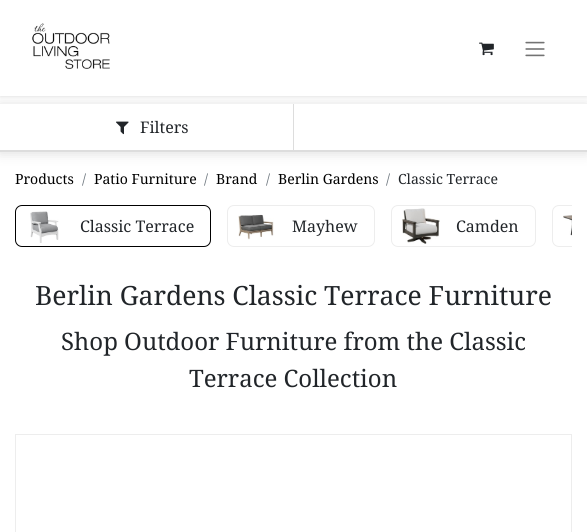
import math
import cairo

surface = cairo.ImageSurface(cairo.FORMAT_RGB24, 587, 532)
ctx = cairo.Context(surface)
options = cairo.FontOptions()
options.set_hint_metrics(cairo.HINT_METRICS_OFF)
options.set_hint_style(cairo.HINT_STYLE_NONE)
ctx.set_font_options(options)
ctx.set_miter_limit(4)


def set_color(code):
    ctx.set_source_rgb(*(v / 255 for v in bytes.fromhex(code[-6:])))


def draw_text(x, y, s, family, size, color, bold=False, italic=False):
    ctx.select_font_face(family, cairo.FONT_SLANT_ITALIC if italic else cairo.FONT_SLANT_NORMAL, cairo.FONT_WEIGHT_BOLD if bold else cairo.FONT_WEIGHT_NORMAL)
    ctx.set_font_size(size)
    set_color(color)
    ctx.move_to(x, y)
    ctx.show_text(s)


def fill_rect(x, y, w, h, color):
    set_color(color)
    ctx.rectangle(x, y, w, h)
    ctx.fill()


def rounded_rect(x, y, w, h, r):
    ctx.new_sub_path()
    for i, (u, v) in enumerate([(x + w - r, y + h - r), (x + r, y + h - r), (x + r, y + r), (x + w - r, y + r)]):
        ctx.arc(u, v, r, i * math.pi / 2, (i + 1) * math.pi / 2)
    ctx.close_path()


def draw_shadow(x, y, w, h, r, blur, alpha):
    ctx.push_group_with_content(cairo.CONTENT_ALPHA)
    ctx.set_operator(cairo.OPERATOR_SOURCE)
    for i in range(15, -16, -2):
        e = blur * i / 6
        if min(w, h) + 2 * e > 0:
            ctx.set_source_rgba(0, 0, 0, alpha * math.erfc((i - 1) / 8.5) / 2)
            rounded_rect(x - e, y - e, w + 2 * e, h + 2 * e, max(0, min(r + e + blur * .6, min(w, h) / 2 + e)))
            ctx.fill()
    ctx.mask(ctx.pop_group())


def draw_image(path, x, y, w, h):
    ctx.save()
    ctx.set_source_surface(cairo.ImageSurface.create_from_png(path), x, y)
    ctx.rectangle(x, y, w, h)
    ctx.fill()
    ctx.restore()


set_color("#ffffff")
ctx.paint()
set_color("#000000")
draw_shadow(0, 1, 587, 96, 0, 1.5, 0.1)
ctx.save()
ctx.set_fill_rule(cairo.FILL_RULE_EVEN_ODD)
ctx.new_path()
ctx.move_to(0, 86)
ctx.line_to(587, 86)
ctx.line_to(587, 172)
ctx.line_to(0, 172)
ctx.close_path()
ctx.move_to(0, 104)
ctx.line_to(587, 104)
ctx.line_to(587, 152)
ctx.line_to(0, 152)
ctx.close_path()
ctx.clip()
set_color("#dddddd")
draw_shadow(0, 105, 587, 48, 0, 6, 1)
ctx.restore()
fill_rect(0, 0, 587, 96, "#ffffff")
draw_image("assets/img1.png", 32, 23, 78, 46)
draw_image("assets/img2.png", 479, 42, 15, 14)
draw_image("assets/img3.png", 525, 41, 20, 16)
fill_rect(0, 150, 587, 2, "#dddddd")
fill_rect(293, 104, 1, 46, "#dddddd")
draw_image("assets/img4.png", 116, 121, 13, 14)
draw_text(140, 133, "Filters", "Noto Serif", 16, "#212529")
draw_text(15, 184, "Products", "Noto Serif", 14, "#000000")
draw_text(82, 184, "/", "Noto Serif", 14, "#6c757d")
draw_text(94, 184, "Patio Furniture", "Noto Serif", 14, "#000000")
draw_text(204, 184, "/", "Noto Serif", 14, "#6c757d")
draw_text(216, 184, "Brand", "Noto Serif", 14, "#000000")
draw_text(266, 184, "/", "Noto Serif", 14, "#6c757d")
draw_text(278, 184, "Berlin Gardens", "Noto Serif", 14, "#000000")
draw_text(386, 184, "/", "Noto Serif", 14, "#6c757d")
draw_text(398, 184, "Classic Terrace", "Noto Serif", 14, "#212529")
rounded_rect(15.5, 205.5, 195, 41, 6.5)
set_color("#000000")
ctx.set_line_width(1)
ctx.stroke()
draw_image("assets/img5.png", 30, 211, 29, 32)
draw_text(80, 232, "Classic Terrace", "Noto Serif", 16, "#212529")
rounded_rect(227.5, 205.5, 147, 41, 6.5)
set_color("#ededed")
ctx.stroke()
draw_image("assets/img6.png", 238, 214, 36, 26)
draw_text(292, 232, "Mayhew", "Noto Serif", 16, "#212529")
rounded_rect(391.5, 205.5, 144, 41, 6.5)
set_color("#ededed")
ctx.stroke()
draw_image("assets/img7.png", 402, 208, 38, 36)
draw_text(456, 232, "Camden", "Noto Serif", 16, "#212529")
ctx.save()
ctx.rectangle(15, 205, 557, 49)
ctx.clip()
rounded_rect(552.5, 205.5, 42, 41, 6.5)
set_color("#ededed")
ctx.stroke()
ctx.restore()
draw_image("assets/img8.png", 563, 215, 9, 21)
draw_text(35, 305, "Berlin Gardens Classic Terrace Furniture", "Noto Serif", 26.5, "#212529")
draw_text(61, 350, "Shop Outdoor Furniture from the Classic", "Noto Serif", 24, "#212529")
draw_text(189, 387, "Terrace Collection", "Noto Serif", 24, "#212529")
ctx.rectangle(15.5, 434.5, 556, 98)
set_color("#ededed")
ctx.stroke()
surface.write_to_png("output.png")
